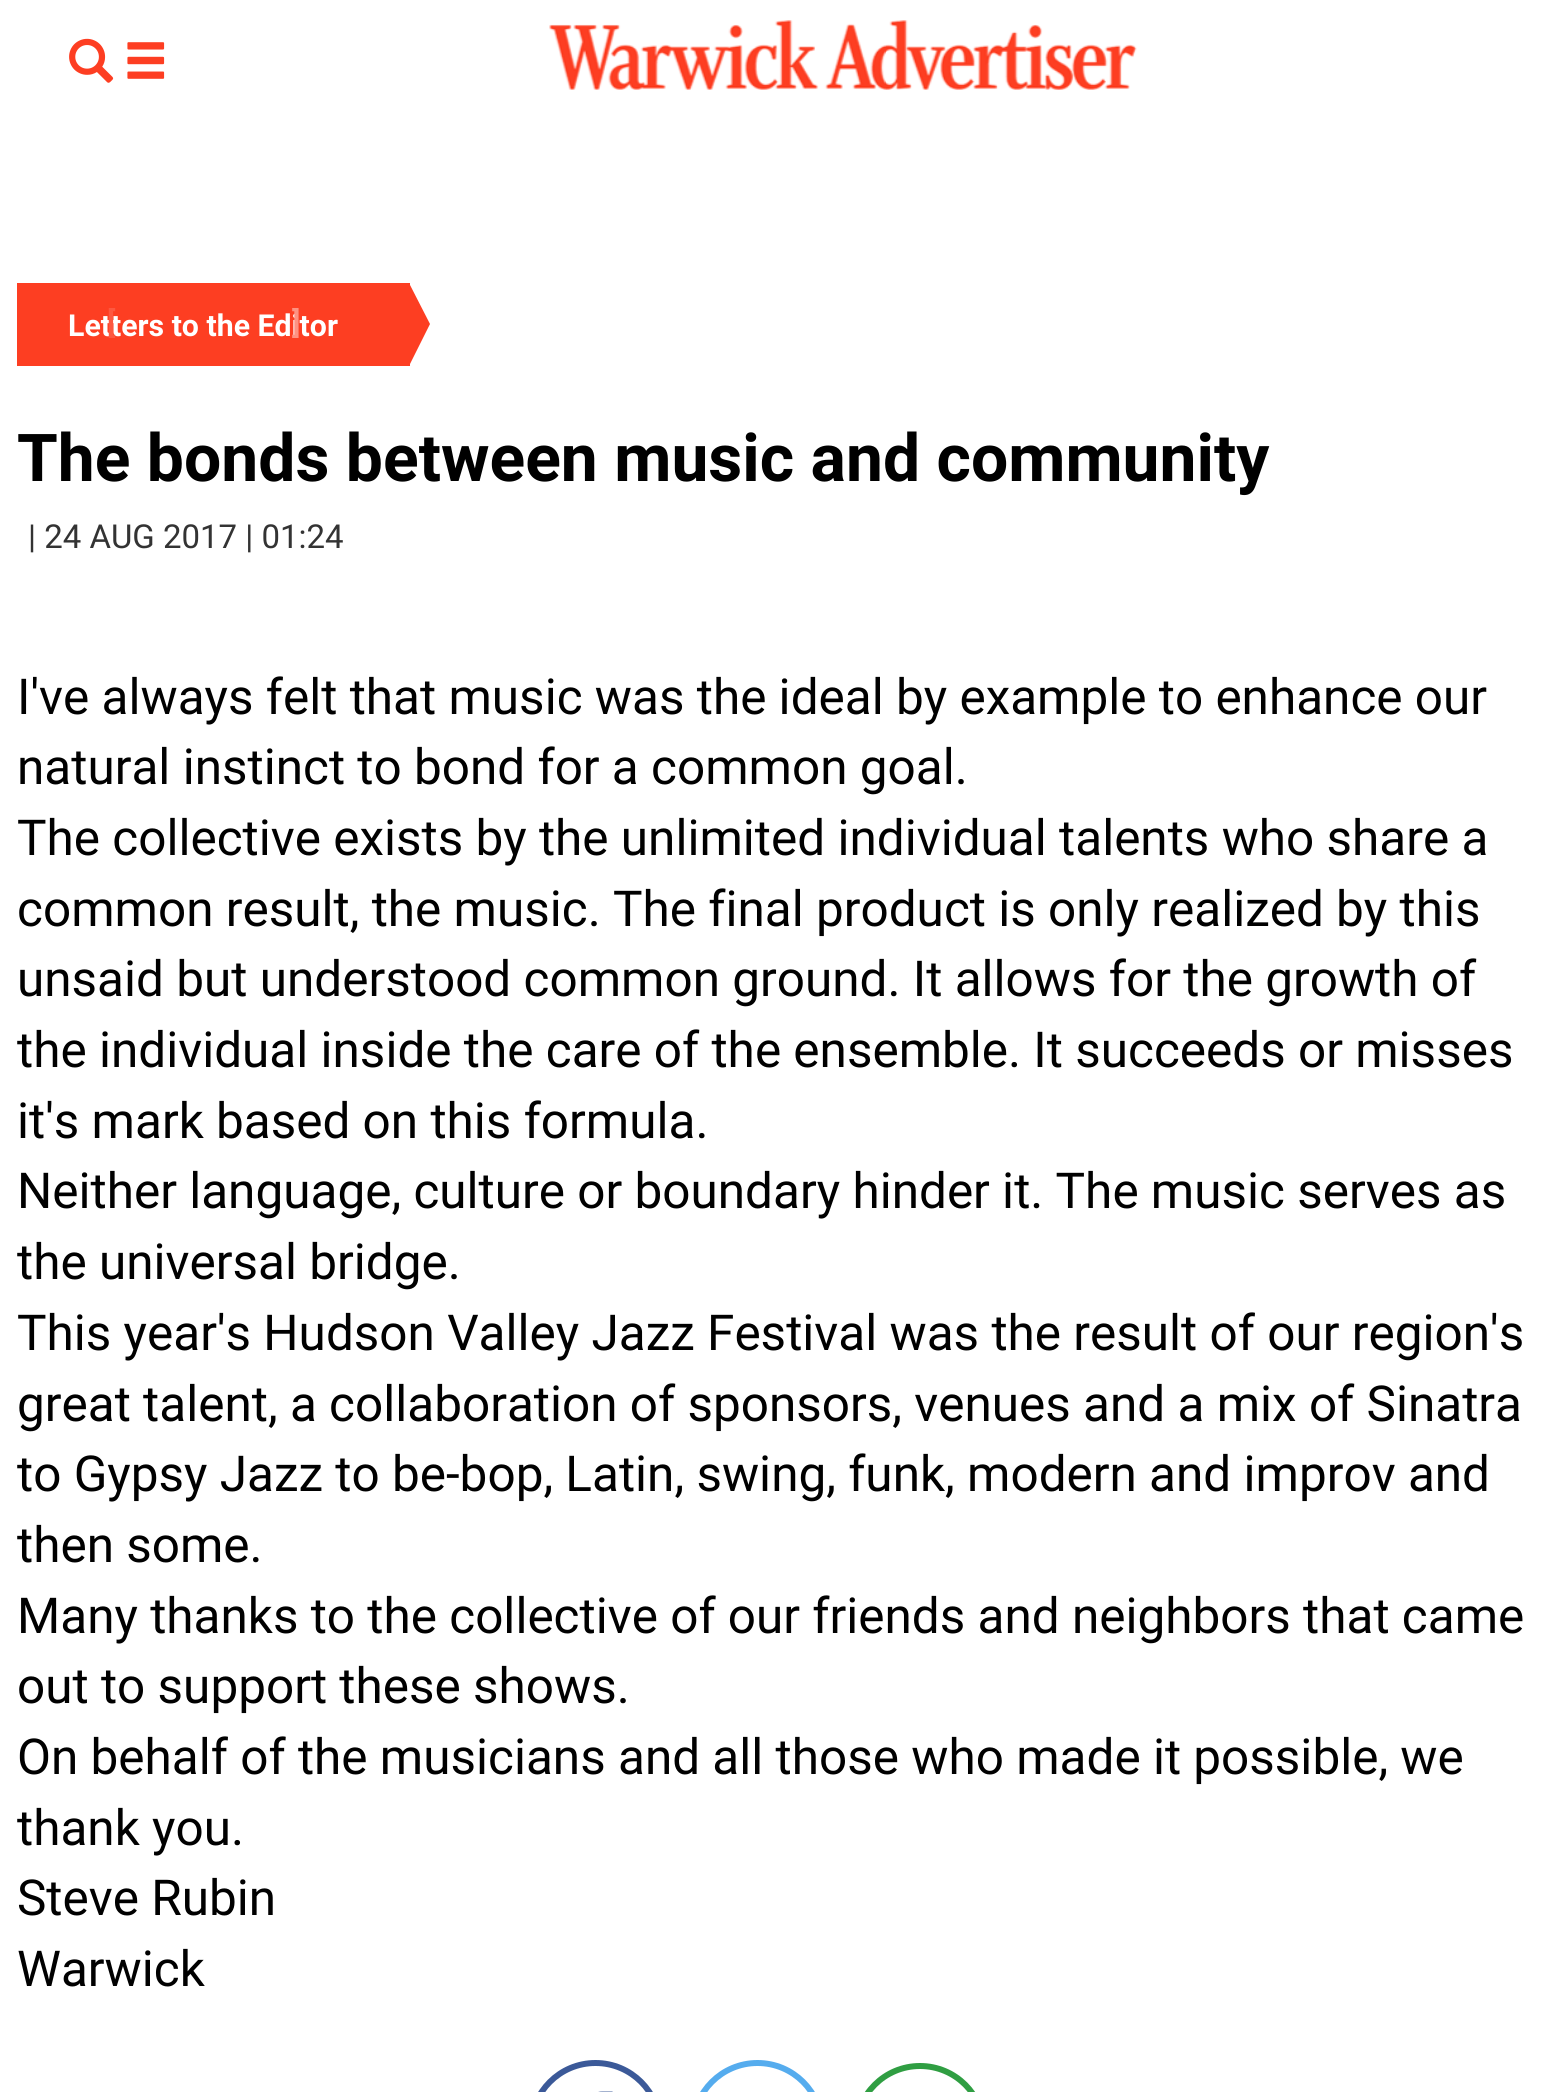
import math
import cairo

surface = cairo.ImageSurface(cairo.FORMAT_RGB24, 1541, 2092)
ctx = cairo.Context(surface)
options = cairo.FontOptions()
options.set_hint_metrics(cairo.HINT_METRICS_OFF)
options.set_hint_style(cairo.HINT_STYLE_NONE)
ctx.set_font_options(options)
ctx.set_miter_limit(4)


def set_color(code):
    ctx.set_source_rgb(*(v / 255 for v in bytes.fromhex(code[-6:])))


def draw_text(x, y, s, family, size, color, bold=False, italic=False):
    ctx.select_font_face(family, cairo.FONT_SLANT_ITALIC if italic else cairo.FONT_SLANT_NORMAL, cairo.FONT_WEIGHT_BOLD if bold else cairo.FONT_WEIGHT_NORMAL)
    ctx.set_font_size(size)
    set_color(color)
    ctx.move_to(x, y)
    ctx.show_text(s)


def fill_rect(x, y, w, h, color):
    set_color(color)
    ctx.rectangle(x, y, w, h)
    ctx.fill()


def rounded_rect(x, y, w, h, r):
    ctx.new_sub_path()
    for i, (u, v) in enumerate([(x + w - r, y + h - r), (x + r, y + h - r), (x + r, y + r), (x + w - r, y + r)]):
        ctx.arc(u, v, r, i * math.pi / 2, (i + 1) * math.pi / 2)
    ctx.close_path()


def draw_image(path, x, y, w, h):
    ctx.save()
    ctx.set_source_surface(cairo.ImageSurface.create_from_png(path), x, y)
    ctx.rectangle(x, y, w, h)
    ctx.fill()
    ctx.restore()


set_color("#ffffff")
ctx.paint()
draw_image("assets/img1.png", 69, 38, 96, 45)
draw_image("assets/img2.png", 549, 20, 588, 70)
fill_rect(17, 283, 393, 83, "#fd3e22")
draw_text(68, 336, "Letters to the Editor", "Roboto", 30.25, "#ffffff", bold=True)
draw_text(107, 333, "[", "Roboto", 30.25, "#fd5840", bold=True)
draw_text(292, 333, "]", "Roboto", 30.25, "#fe9282", bold=True)
set_color("#fd3e22")
ctx.new_path()
ctx.move_to(409, 366)
ctx.line_to(409, 283)
ctx.line_to(430, 324)
ctx.close_path()
ctx.fill()
draw_text(17, 481, "The bonds between music and community", "Roboto", 66, "#000000", bold=True)
draw_text(28, 548, "| 24 AUG 2017 | 01:24", "Roboto", 33, "#333333")
draw_text(17, 714, "I've always felt that music was the ideal by example to enhance our", "Roboto", 49.5, "#000000")
draw_text(17, 784, "natural instinct to bond for a common goal.", "Roboto", 49.5, "#000000")
draw_text(17, 855, "The collective exists by the unlimited individual talents who share a", "Roboto", 49.5, "#000000")
draw_text(17, 926, "common result, the music. The final product is only realized by this", "Roboto", 49.5, "#000000")
draw_text(17, 996, "unsaid but understood common ground. It allows for the growth of", "Roboto", 49.5, "#000000")
draw_text(17, 1067, "the individual inside the care of the ensemble. It succeeds or misses", "Roboto", 49.5, "#000000")
draw_text(17, 1138, "it's mark based on this formula.", "Roboto", 49.5, "#000000")
draw_text(17, 1208, "Neither language, culture or boundary hinder it. The music serves as", "Roboto", 49.5, "#000000")
draw_text(17, 1279, "the universal bridge.", "Roboto", 49.5, "#000000")
draw_text(17, 1350, "This year's Hudson Valley Jazz Festival was the result of our region's", "Roboto", 49.5, "#000000")
draw_text(17, 1421, "great talent, a collaboration of sponsors, venues and a mix of Sinatra", "Roboto", 49.5, "#000000")
draw_text(17, 1491, "to Gypsy Jazz to be-bop, Latin, swing, funk, modern and improv and", "Roboto", 49.5, "#000000")
draw_text(17, 1562, "then some.", "Roboto", 49.5, "#000000")
draw_text(17, 1633, "Many thanks to the collective of our friends and neighbors that came", "Roboto", 49.5, "#000000")
draw_text(17, 1703, "out to support these shows.", "Roboto", 49.5, "#000000")
draw_text(17, 1774, "On behalf of the musicians and all those who made it possible, we", "Roboto", 49.5, "#000000")
draw_text(17, 1845, "thank you.", "Roboto", 49.5, "#000000")
draw_text(17, 1915, "Steve Rubin", "Roboto", 49.5, "#000000")
draw_text(17, 1986, "Warwick", "Roboto", 49.5, "#000000")
rounded_rect(531, 2063, 129, 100, 64.5)
set_color("#3b5998")
ctx.set_line_width(6)
ctx.stroke()
draw_image("assets/img3.png", 598, 2091, 15, 1)
rounded_rect(693, 2063, 129, 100, 64.5)
set_color("#55acee")
ctx.stroke()
rounded_rect(856, 2066, 128, 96, 64)
set_color("#2f9e42")
ctx.stroke()
surface.write_to_png("output.png")
